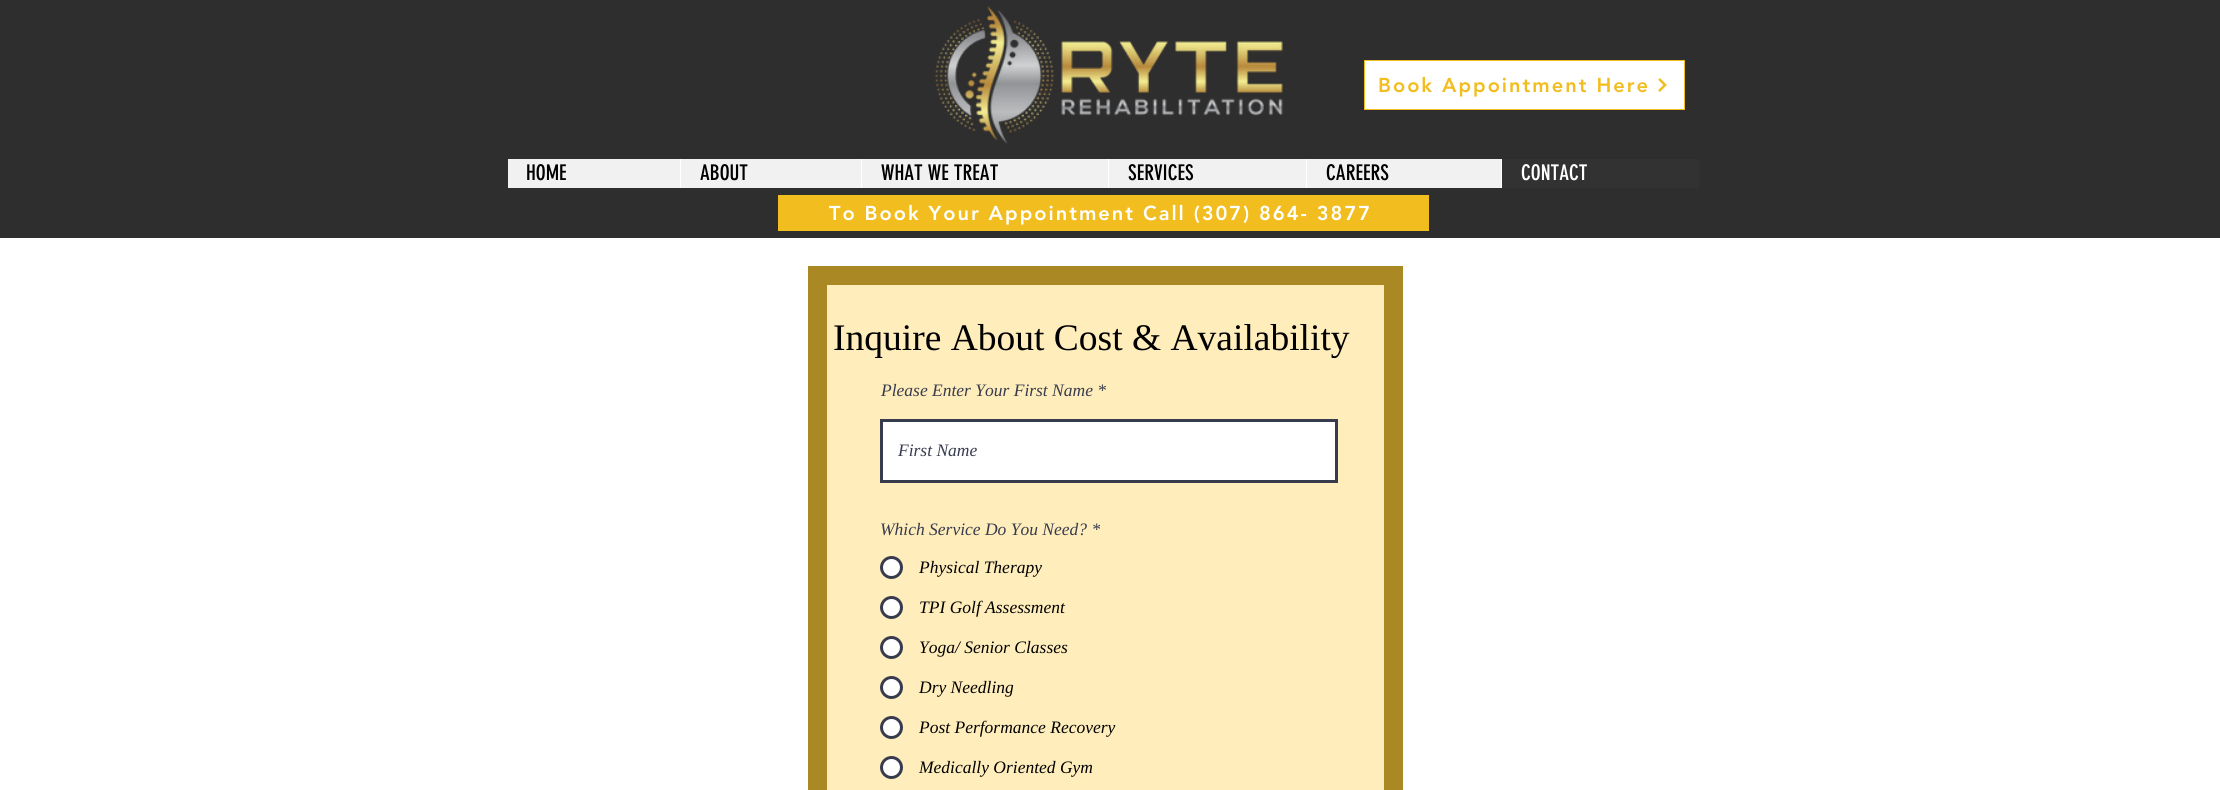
import math
import cairo

surface = cairo.ImageSurface(cairo.FORMAT_RGB24, 2220, 790)
ctx = cairo.Context(surface)
options = cairo.FontOptions()
options.set_hint_metrics(cairo.HINT_METRICS_OFF)
options.set_hint_style(cairo.HINT_STYLE_NONE)
ctx.set_font_options(options)
ctx.set_miter_limit(4)


def set_color(code):
    ctx.set_source_rgb(*(v / 255 for v in bytes.fromhex(code[-6:])))


def draw_text(x, y, s, family, size, color, bold=False, italic=False):
    ctx.select_font_face(family, cairo.FONT_SLANT_ITALIC if italic else cairo.FONT_SLANT_NORMAL, cairo.FONT_WEIGHT_BOLD if bold else cairo.FONT_WEIGHT_NORMAL)
    ctx.set_font_size(size)
    set_color(color)
    ctx.move_to(x, y)
    ctx.show_text(s)


def draw_spaced(x, y, s, letter, word):
    ctx.move_to(x, y)
    for ch in s:
        ctx.show_text(ch)
        ctx.rel_move_to(letter + word * (ch == ' '), 0)


def fill_rect(x, y, w, h, color):
    set_color(color)
    ctx.rectangle(x, y, w, h)
    ctx.fill()


def draw_image(path, x, y, w, h):
    ctx.save()
    ctx.set_source_surface(cairo.ImageSurface.create_from_png(path), x, y)
    ctx.rectangle(x, y, w, h)
    ctx.fill()
    ctx.restore()


set_color("#ffffff")
ctx.paint()
fill_rect(0, 0, 2220, 238, "#2f2e2e")
draw_image("assets/img1.png", 935, 6, 348, 138)
set_color("#ffffff")
ctx.rectangle(1364.5, 60.5, 320, 49)
ctx.fill_preserve()
set_color("#f2bd1e")
ctx.set_line_width(1)
ctx.stroke()
ctx.select_font_face("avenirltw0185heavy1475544 Black")
ctx.set_font_size(20)
draw_spaced(1378, 92, "Book Appointment Here", 2, 0)
draw_image("assets/img2.png", 1658, 78, 9, 14)
fill_rect(508, 159, 993, 29, "#f1f1f1")
draw_text(526, 180, "HOME", "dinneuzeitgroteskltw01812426", 21.25, "#000000")
fill_rect(680, 159, 1, 29, "#ffffff")
draw_text(700, 180, "ABOUT", "dinneuzeitgroteskltw01812426", 21.25, "#000000")
fill_rect(861, 159, 1, 29, "#ffffff")
draw_text(881, 180, "WHAT WE TREAT", "dinneuzeitgroteskltw01812426", 21.25, "#000000")
fill_rect(1108, 159, 1, 29, "#ffffff")
draw_text(1128, 180, "SERVICES", "dinneuzeitgroteskltw01812426", 21.25, "#000000")
fill_rect(1306, 159, 1, 29, "#ffffff")
draw_text(1326, 180, "CAREERS", "dinneuzeitgroteskltw01812426", 21.25, "#000000")
fill_rect(1502, 159, 197, 29, "#323232")
fill_rect(1501, 159, 1, 29, "#ffffff")
draw_text(1521, 180, "CONTACT", "dinneuzeitgroteskltw01812426", 21.25, "#ffffff")
fill_rect(778, 195, 651, 36, "#f2bd1e")
ctx.select_font_face("avenirltw0185heavy1475544 Black")
ctx.set_font_size(20)
set_color("#ffffff")
draw_spaced(829, 220, "To Book Your Appointment Call (307) 864- 3877", 2, 0)
set_color("#ffeebc")
ctx.rectangle(817.5, 275.5, 576, 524)
ctx.fill_preserve()
set_color("#aa8925")
ctx.set_line_width(19)
ctx.stroke()
draw_text(833, 350, "Inquire About Cost & Availability", "Liberation Serif", 37.5, "#000000")
draw_text(881, 396, "Please Enter Your First Name *", "Liberation Serif", 17.5, "#373b4d", italic=True)
set_color("#ffffff")
ctx.rectangle(881.5, 420.5, 455, 61)
ctx.fill_preserve()
set_color("#373b4d")
ctx.set_line_width(3)
ctx.stroke()
draw_text(898, 456, "First Name", "Liberation Serif", 17.5, "#373b4d", italic=True)
draw_text(880, 535, "Which Service Do You Need? *", "Liberation Serif", 17.5, "#373b4d", italic=True)
set_color("#ffffff")
ctx.new_path()
ctx.arc(891.5, 567.5, 10, 0, 2 * math.pi)
ctx.fill_preserve()
set_color("#373b4d")
ctx.stroke()
draw_text(919, 573, "Physical Therapy", "Liberation Serif", 17.5, "#000000", italic=True)
set_color("#ffffff")
ctx.new_path()
ctx.arc(891.5, 607.5, 10, 0, 2 * math.pi)
ctx.fill_preserve()
set_color("#373b4d")
ctx.stroke()
draw_text(919, 613, "TPI Golf Assessment", "Liberation Serif", 17.5, "#000000", italic=True)
set_color("#ffffff")
ctx.new_path()
ctx.arc(891.5, 647.5, 10, 0, 2 * math.pi)
ctx.fill_preserve()
set_color("#373b4d")
ctx.stroke()
draw_text(919, 653, "Yoga/ Senior Classes", "Liberation Serif", 17.5, "#000000", italic=True)
set_color("#ffffff")
ctx.new_path()
ctx.arc(891.5, 687.5, 10, 0, 2 * math.pi)
ctx.fill_preserve()
set_color("#373b4d")
ctx.stroke()
draw_text(919, 693, "Dry Needling", "Liberation Serif", 17.5, "#000000", italic=True)
set_color("#ffffff")
ctx.new_path()
ctx.arc(891.5, 727.5, 10, 0, 2 * math.pi)
ctx.fill_preserve()
set_color("#373b4d")
ctx.stroke()
draw_text(919, 733, "Post Performance Recovery", "Liberation Serif", 17.5, "#000000", italic=True)
set_color("#ffffff")
ctx.new_path()
ctx.arc(891.5, 767.5, 10, 0, 2 * math.pi)
ctx.fill_preserve()
set_color("#373b4d")
ctx.stroke()
draw_text(919, 773, "Medically Oriented Gym", "Liberation Serif", 17.5, "#000000", italic=True)
surface.write_to_png("output.png")
